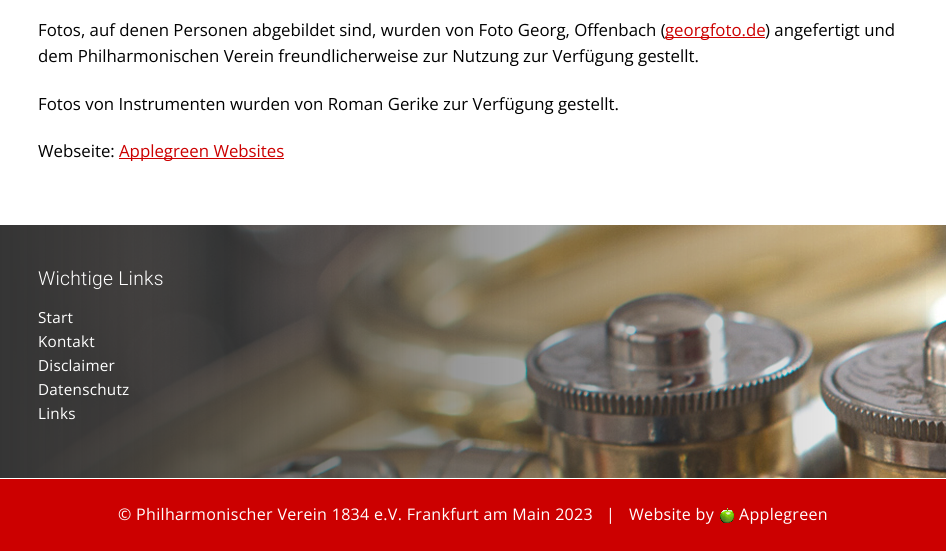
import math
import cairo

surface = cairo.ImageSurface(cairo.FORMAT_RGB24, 946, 551)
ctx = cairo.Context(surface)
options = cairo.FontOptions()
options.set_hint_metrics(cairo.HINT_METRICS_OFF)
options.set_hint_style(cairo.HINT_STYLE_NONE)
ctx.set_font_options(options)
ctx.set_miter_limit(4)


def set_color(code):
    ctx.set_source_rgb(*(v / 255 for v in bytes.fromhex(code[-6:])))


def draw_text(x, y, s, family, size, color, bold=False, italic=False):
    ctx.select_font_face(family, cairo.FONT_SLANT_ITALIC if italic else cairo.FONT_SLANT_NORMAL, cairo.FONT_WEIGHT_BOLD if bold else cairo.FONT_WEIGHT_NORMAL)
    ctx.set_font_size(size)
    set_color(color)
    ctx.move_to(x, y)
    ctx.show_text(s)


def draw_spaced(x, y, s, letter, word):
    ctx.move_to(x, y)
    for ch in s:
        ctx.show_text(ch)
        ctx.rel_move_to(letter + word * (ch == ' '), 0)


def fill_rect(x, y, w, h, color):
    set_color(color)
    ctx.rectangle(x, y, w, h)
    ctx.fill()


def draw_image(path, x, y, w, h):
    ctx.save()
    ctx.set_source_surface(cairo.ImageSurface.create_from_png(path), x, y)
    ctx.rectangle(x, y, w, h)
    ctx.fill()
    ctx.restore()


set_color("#ffffff")
ctx.paint()
draw_text(38, 36, "Fotos, auf denen Personen abgebildet sind, wurden von Foto Georg, Offenbach (", "Open Sans", 16.8, "#000000")
fill_rect(665, 37, 100, 1, "#cc0000")
draw_text(665, 36, "georgfoto.de", "Open Sans", 16.8, "#cc0000")
draw_text(765, 36, ") angefertigt und", "Open Sans", 16.8, "#000000")
draw_text(38, 62, "dem Philharmonischen Verein freundlicherweise zur Nutzung zur Verfügung gestellt.", "Open Sans", 16.8, "#000000")
draw_text(38, 110, "Fotos von Instrumenten wurden von Roman Gerike zur Verfügung gestellt.", "Open Sans", 16.8, "#000000")
draw_text(38, 157, "Webseite:", "Open Sans", 16.8, "#000000")
fill_rect(119, 158, 165, 1, "#cc0000")
draw_text(119, 157, "Applegreen Websites", "Open Sans", 16.8, "#cc0000")
draw_image("assets/img1.png", 6, 225, 940, 253)
gradient = cairo.LinearGradient(0, 360, 946, 360)
gradient.add_color_stop_rgba(0, 0.208, 0.208, 0.208, 1)
gradient.add_color_stop_rgba(1, 0.208, 0.208, 0.208, 0)
ctx.set_source(gradient)
ctx.rectangle(0, 225, 926, 253)
ctx.fill()
ctx.select_font_face("Roboto Light")
ctx.set_font_size(19.25)
set_color("#ffffff")
draw_spaced(38, 285, "Wichtige Links", 0.25, 0)
ctx.select_font_face("Open Sans")
ctx.set_font_size(15.25)
draw_spaced(38, 323, "Start", 0.25, 0)
draw_spaced(38, 347, "Kontakt", 0.25, 0)
draw_spaced(38, 371, "Disclaimer", 0.25, 0)
draw_spaced(38, 395, "Datenschutz", 0.25, 0)
draw_spaced(38, 419, "Links", 0.25, 0)
fill_rect(0, 479, 946, 72, "#cc0000")
ctx.set_font_size(16)
set_color("#ffffff")
draw_spaced(118, 520, "© Philharmonischer Verein 1834 e.V. Frankfurt am Main 2023", 0.32, 0)
draw_spaced(606, 520, "|", 0.32, 0)
draw_spaced(629, 520, "Website by", 0.32, 0)
draw_image("assets/img2.png", 720, 508, 14, 15)
draw_spaced(739, 520, "Applegreen", 0.32, 0)
surface.write_to_png("output.png")
